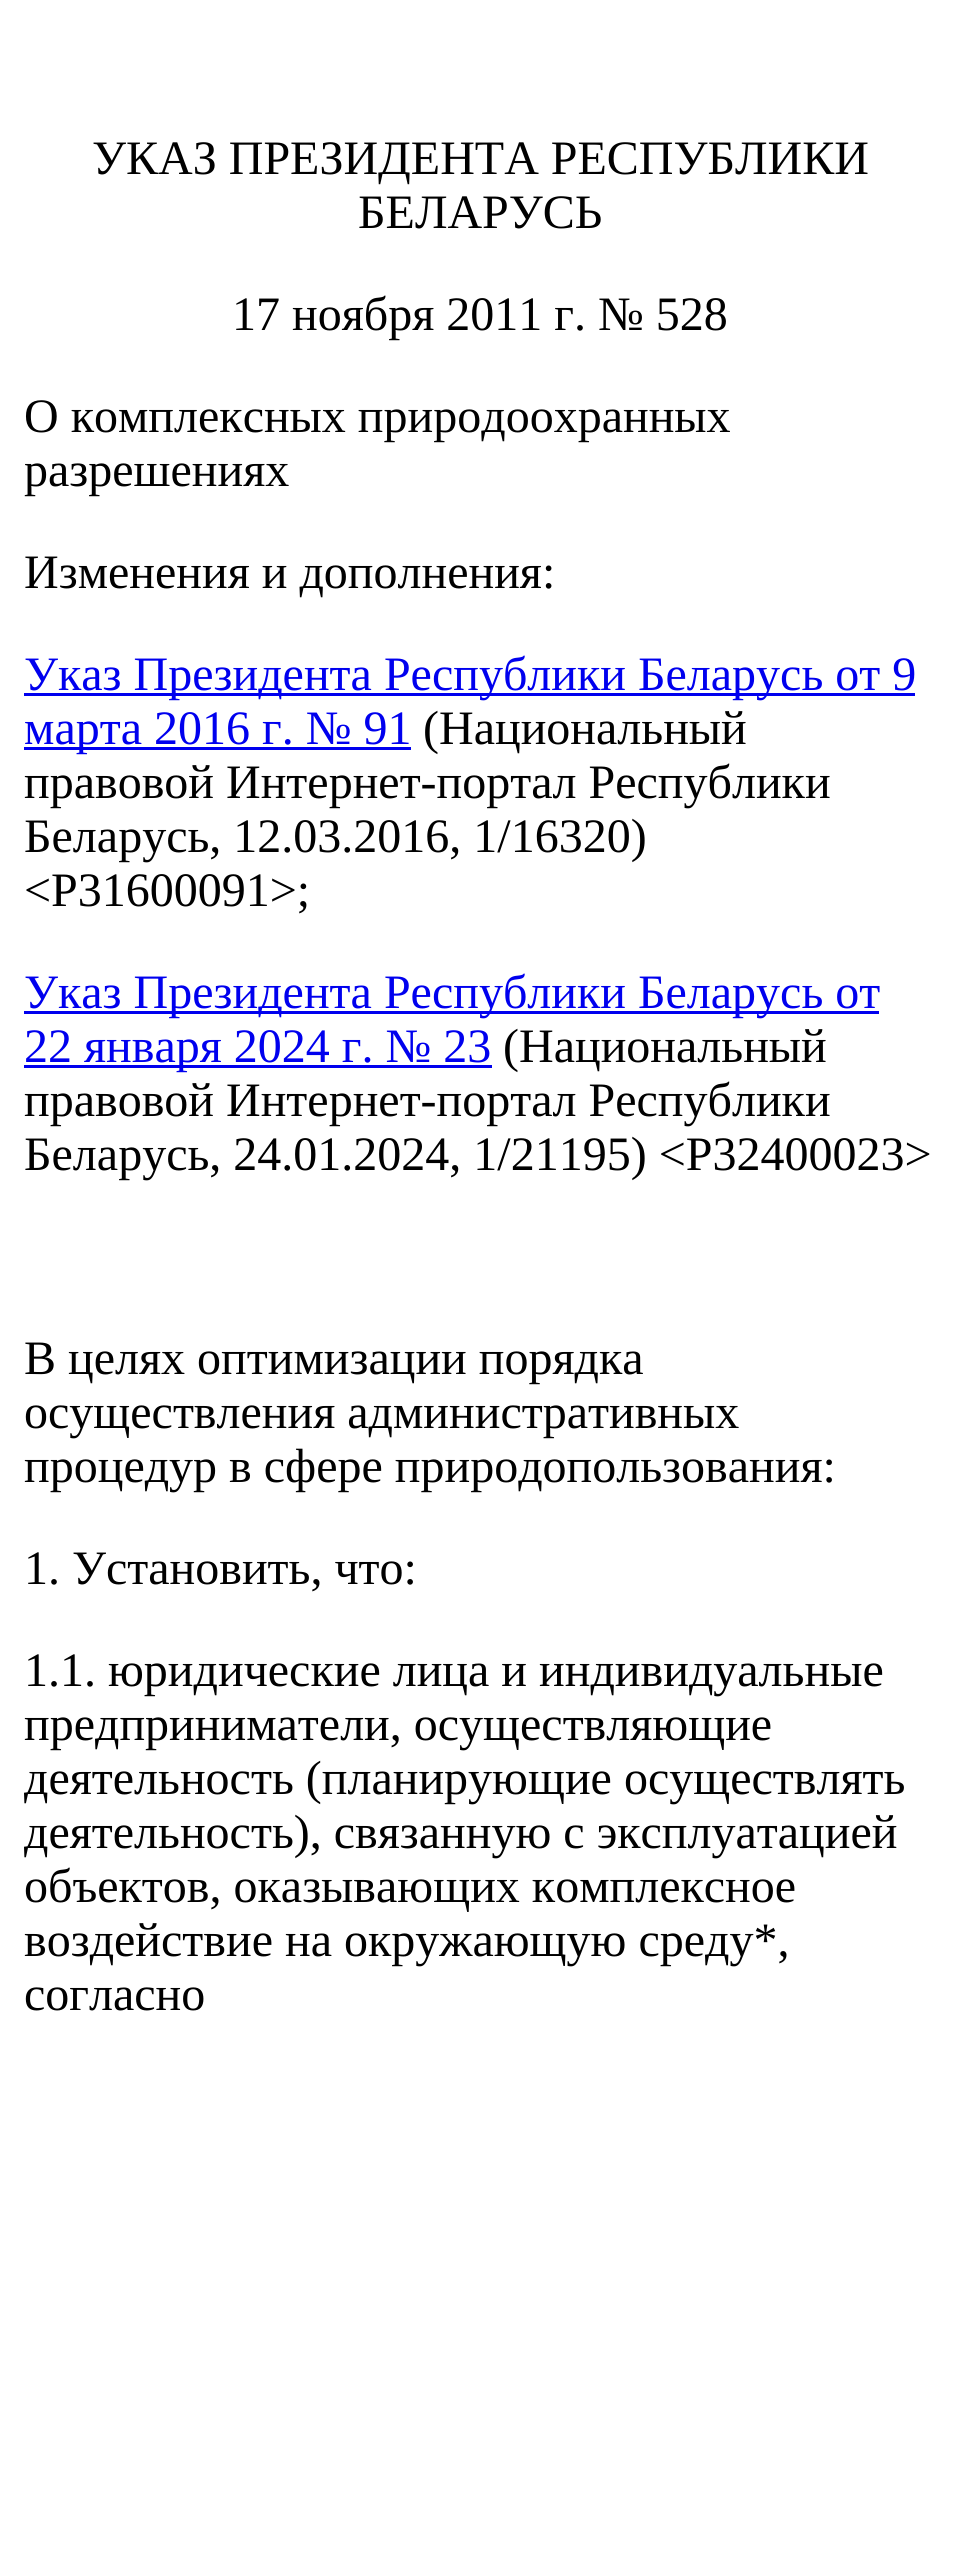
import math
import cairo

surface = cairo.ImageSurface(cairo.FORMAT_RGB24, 960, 2576)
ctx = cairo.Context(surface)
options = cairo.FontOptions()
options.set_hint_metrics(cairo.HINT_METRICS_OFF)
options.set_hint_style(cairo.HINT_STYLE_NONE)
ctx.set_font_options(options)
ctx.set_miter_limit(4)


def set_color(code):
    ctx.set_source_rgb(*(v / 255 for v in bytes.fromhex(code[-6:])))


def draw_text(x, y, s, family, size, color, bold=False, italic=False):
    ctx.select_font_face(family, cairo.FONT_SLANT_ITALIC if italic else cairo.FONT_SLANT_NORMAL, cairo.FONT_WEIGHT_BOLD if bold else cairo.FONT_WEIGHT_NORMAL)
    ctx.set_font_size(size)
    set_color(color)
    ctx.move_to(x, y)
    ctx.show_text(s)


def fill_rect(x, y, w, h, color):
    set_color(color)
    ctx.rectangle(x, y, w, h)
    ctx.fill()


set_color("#ffffff")
ctx.paint()
draw_text(92, 174, "УКАЗ ПРЕЗИДЕНТА РЕСПУБЛИКИ", "Liberation Serif", 48, "#000000")
draw_text(358, 228, "БЕЛАРУСЬ", "Liberation Serif", 48, "#000000")
draw_text(232, 330, "17 ноября 2011 г. № 528", "Liberation Serif", 48, "#000000")
draw_text(24, 432, "О комплексных природоохранных", "Liberation Serif", 48, "#000000")
draw_text(24, 486, "разрешениях", "Liberation Serif", 48, "#000000")
draw_text(24, 588, "Изменения и дополнения:", "Liberation Serif", 48, "#000000")
fill_rect(24, 693, 891, 3, "#0000ee")
draw_text(24, 690, "Указ Президента Республики Беларусь от 9", "Liberation Serif", 48, "#0000ee")
fill_rect(24, 747, 387, 3, "#0000ee")
draw_text(24, 744, "марта 2016 г. № 91", "Liberation Serif", 48, "#0000ee")
draw_text(423, 744, "(Национальный", "Liberation Serif", 48, "#000000")
draw_text(24, 798, "правовой Интернет-портал Республики", "Liberation Serif", 48, "#000000")
draw_text(24, 852, "Беларусь, 12.03.2016, 1/16320)", "Liberation Serif", 48, "#000000")
draw_text(24, 906, "<P31600091>;", "Liberation Serif", 48, "#000000")
fill_rect(24, 1011, 855, 3, "#0000ee")
draw_text(24, 1008, "Указ Президента Республики Беларусь от", "Liberation Serif", 48, "#0000ee")
fill_rect(24, 1065, 468, 3, "#0000ee")
draw_text(24, 1062, "22 января 2024 г. № 23", "Liberation Serif", 48, "#0000ee")
draw_text(503, 1062, "(Национальный", "Liberation Serif", 48, "#000000")
draw_text(24, 1116, "правовой Интернет-портал Республики", "Liberation Serif", 48, "#000000")
draw_text(24, 1170, "Беларусь, 24.01.2024, 1/21195) <P32400023>", "Liberation Serif", 48, "#000000")
draw_text(24, 1374, "В целях оптимизации порядка", "Liberation Serif", 48, "#000000")
draw_text(24, 1428, "осуществления административных", "Liberation Serif", 48, "#000000")
draw_text(24, 1482, "процедур в сфере природопользования:", "Liberation Serif", 48, "#000000")
draw_text(24, 1584, "1. Установить, что:", "Liberation Serif", 48, "#000000")
draw_text(24, 1686, "1.1. юридические лица и индивидуальные", "Liberation Serif", 48, "#000000")
draw_text(24, 1740, "предприниматели, осуществляющие", "Liberation Serif", 48, "#000000")
draw_text(24, 1794, "деятельность (планирующие осуществлять", "Liberation Serif", 48, "#000000")
draw_text(24, 1848, "деятельность), связанную с эксплуатацией", "Liberation Serif", 48, "#000000")
draw_text(24, 1902, "объектов, оказывающих комплексное", "Liberation Serif", 48, "#000000")
draw_text(24, 1956, "воздействие на окружающую среду*,", "Liberation Serif", 48, "#000000")
draw_text(24, 2010, "согласно", "Liberation Serif", 48, "#000000")
surface.write_to_png("output.png")
